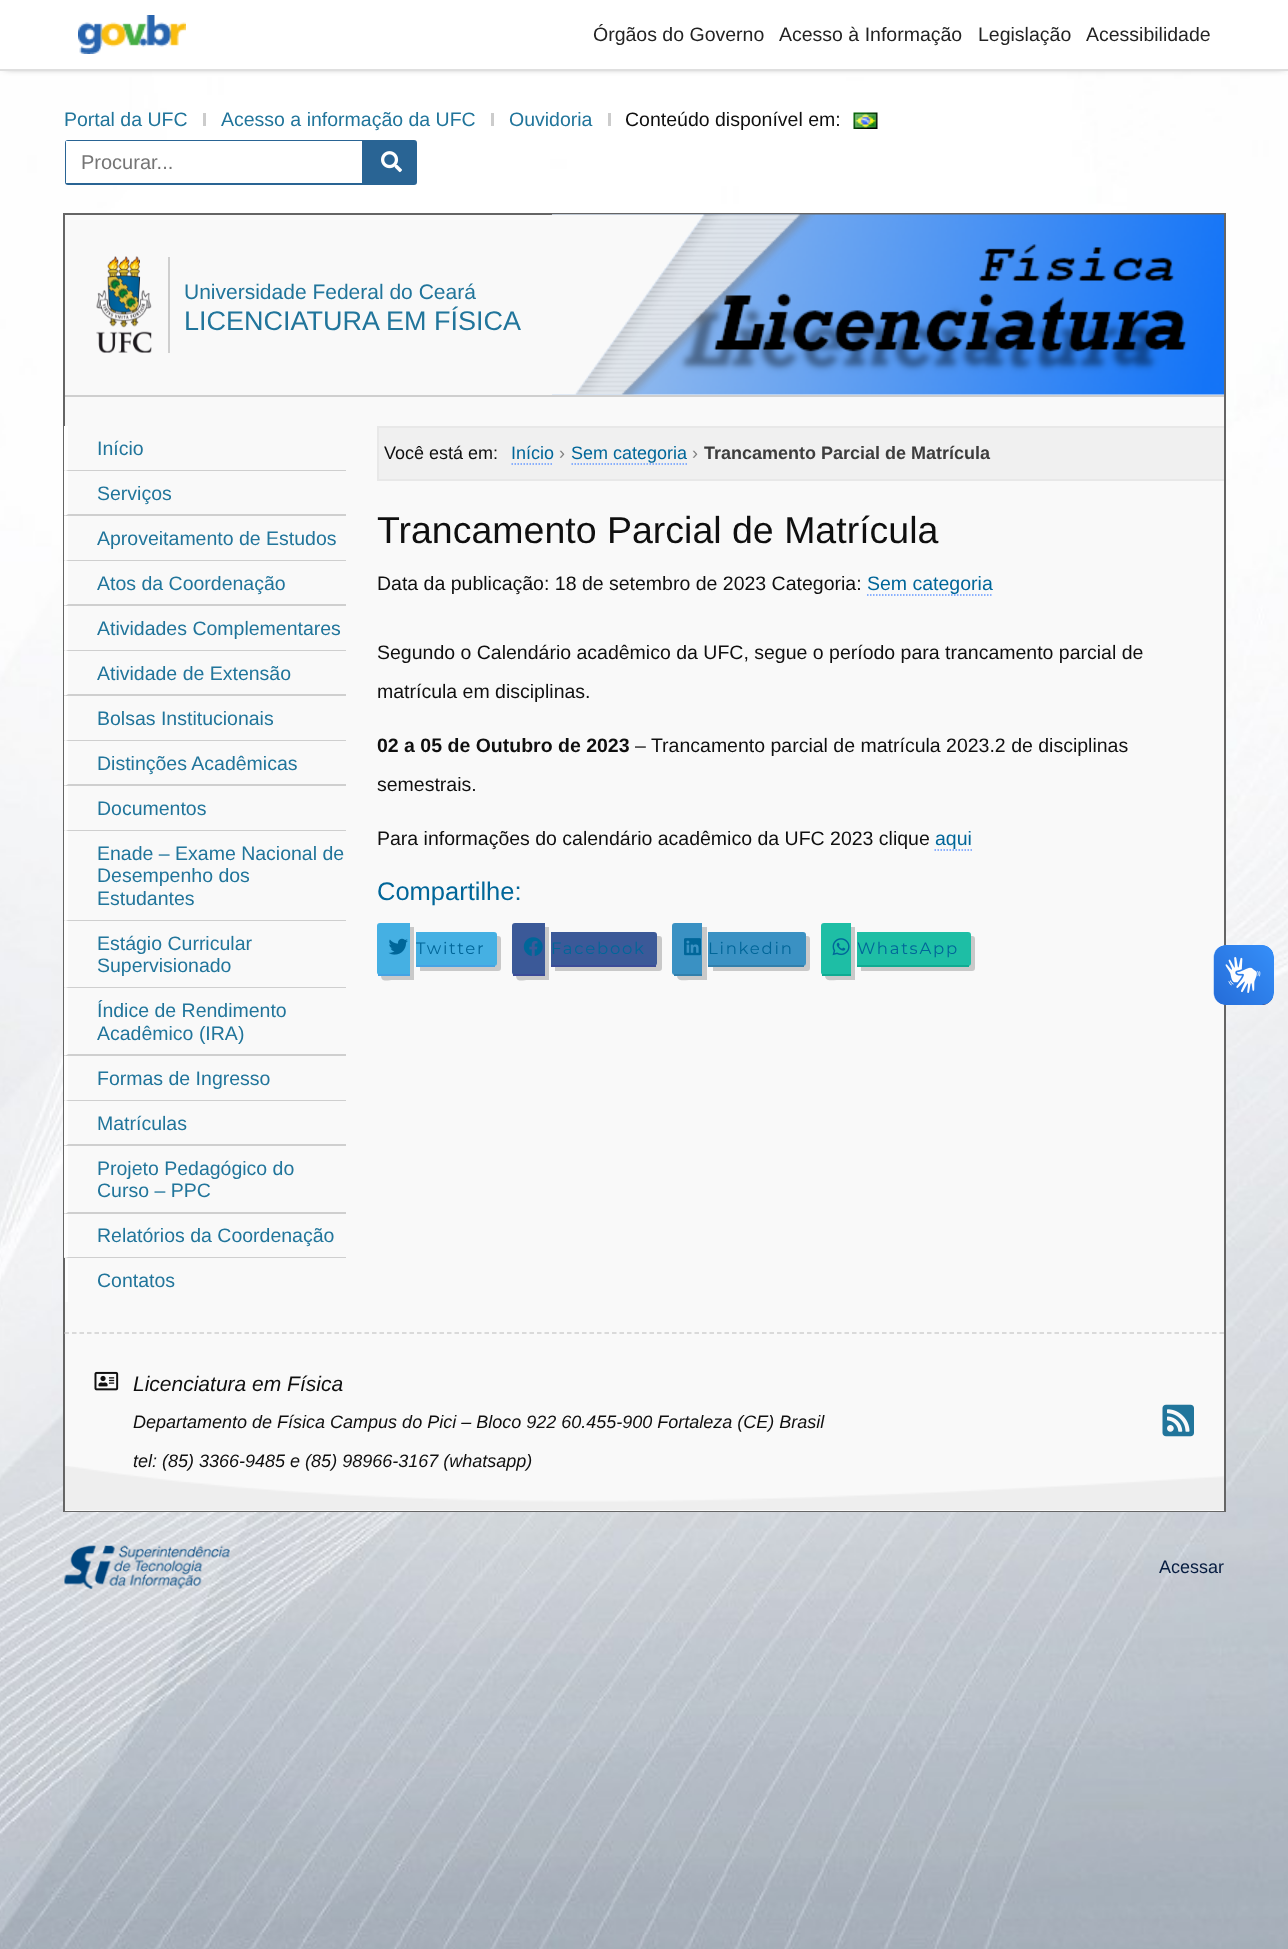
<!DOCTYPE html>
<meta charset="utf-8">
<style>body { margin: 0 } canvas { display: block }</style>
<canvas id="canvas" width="1288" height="1949"></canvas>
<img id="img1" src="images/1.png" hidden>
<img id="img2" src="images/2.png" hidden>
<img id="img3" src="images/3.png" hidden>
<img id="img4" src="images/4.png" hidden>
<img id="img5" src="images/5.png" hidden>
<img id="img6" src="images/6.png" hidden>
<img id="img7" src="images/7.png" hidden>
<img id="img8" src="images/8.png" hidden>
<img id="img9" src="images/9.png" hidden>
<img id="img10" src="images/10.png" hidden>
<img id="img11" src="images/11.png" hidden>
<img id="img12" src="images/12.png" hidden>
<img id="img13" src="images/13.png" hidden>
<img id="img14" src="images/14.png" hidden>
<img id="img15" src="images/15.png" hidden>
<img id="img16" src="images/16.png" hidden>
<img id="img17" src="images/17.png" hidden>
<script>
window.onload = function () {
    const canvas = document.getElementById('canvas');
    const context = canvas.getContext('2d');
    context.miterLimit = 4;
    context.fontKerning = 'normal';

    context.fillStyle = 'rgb(255, 255, 255)';
    context.fillRect(0, 0, 1288, 1949);
    context.drawImage(document.getElementById('img1'), 0, 71, 1288, 1878);
    context.fillStyle = 'rgb(51, 51, 51)';
    context.filter = 'blur(4px)';
    context.beginPath();
    context.rect(5, 5, 1279, 61);
    context.fill();
    context.filter = 'none';
    context.fillStyle = 'rgb(255, 255, 255)';
    context.fillRect(0, 0, 1288, 69);
    context.fillStyle = 'rgb(223, 223, 223)';
    context.fillRect(0, 69, 1288, 2);
    context.drawImage(document.getElementById('img2'), 78, 15, 108, 39);
    context.fillStyle = 'rgb(204, 204, 204)';
    context.fillRect(203, 113, 3, 13);
    context.fillRect(491, 113, 3, 13);
    context.fillRect(608, 113, 3, 13);
    context.drawImage(document.getElementById('img3'), 853, 112, 25, 17);
    context.beginPath();
    context.roundRect(66, 141, 350, 43, 2);
    context.strokeStyle = 'rgb(41, 100, 148)';
    context.lineWidth = 2;
    context.stroke();
    context.fillStyle = 'rgb(41, 100, 148)';
    context.fillRect(362, 142, 53, 41);
    context.fillStyle = 'rgb(255, 255, 255)';
    context.fillRect(66, 141, 296, 42);
    context.drawImage(document.getElementById('img4'), 381, 151, 21, 22);
    context.strokeStyle = 'rgb(101, 101, 101)';
    context.strokeRect(64, 214, 1161, 1297);
    context.fillStyle = 'rgb(249, 249, 249)';
    context.fillRect(65, 215, 1159, 1296);
    context.fillStyle = 'rgb(207, 207, 207)';
    context.fillRect(65, 395, 1159, 2);
    context.fillRect(168, 257, 2, 96);
    context.drawImage(document.getElementById('img5'), 96, 256, 56, 97);
    context.drawImage(document.getElementById('img6'), 552, 214, 672, 181);
    context.drawImage(document.getElementById('img7'), 552, 214, 263, 181);
    context.beginPath();
    context.moveTo(346, 471);
    context.lineTo(64, 471);
    context.lineTo(68, 470);
    context.lineTo(346, 470);
    context.closePath();
    context.fill();
    context.fillStyle = 'rgb(255, 255, 255)';
    context.beginPath();
    context.moveTo(64, 471);
    context.lineTo(64, 426);
    context.lineTo(68, 426);
    context.lineTo(68, 470);
    context.closePath();
    context.fill();
    context.fillStyle = 'rgb(207, 207, 207)';
    context.beginPath();
    context.moveTo(346, 516);
    context.lineTo(64, 516);
    context.lineTo(68, 514);
    context.lineTo(346, 514);
    context.closePath();
    context.fill();
    context.fillStyle = 'rgb(255, 255, 255)';
    context.beginPath();
    context.moveTo(64, 516);
    context.lineTo(64, 471);
    context.lineTo(68, 471);
    context.lineTo(68, 514);
    context.closePath();
    context.fill();
    context.fillStyle = 'rgb(207, 207, 207)';
    context.beginPath();
    context.moveTo(346, 561);
    context.lineTo(64, 561);
    context.lineTo(68, 560);
    context.lineTo(346, 560);
    context.closePath();
    context.fill();
    context.fillStyle = 'rgb(255, 255, 255)';
    context.beginPath();
    context.moveTo(64, 561);
    context.lineTo(64, 516);
    context.lineTo(68, 516);
    context.lineTo(68, 560);
    context.closePath();
    context.fill();
    context.fillStyle = 'rgb(207, 207, 207)';
    context.beginPath();
    context.moveTo(346, 606);
    context.lineTo(64, 606);
    context.lineTo(68, 604);
    context.lineTo(346, 604);
    context.closePath();
    context.fill();
    context.fillStyle = 'rgb(255, 255, 255)';
    context.beginPath();
    context.moveTo(64, 606);
    context.lineTo(64, 561);
    context.lineTo(68, 561);
    context.lineTo(68, 604);
    context.closePath();
    context.fill();
    context.fillStyle = 'rgb(207, 207, 207)';
    context.beginPath();
    context.moveTo(346, 651);
    context.lineTo(64, 651);
    context.lineTo(68, 650);
    context.lineTo(346, 650);
    context.closePath();
    context.fill();
    context.fillStyle = 'rgb(255, 255, 255)';
    context.beginPath();
    context.moveTo(64, 651);
    context.lineTo(64, 606);
    context.lineTo(68, 606);
    context.lineTo(68, 650);
    context.closePath();
    context.fill();
    context.fillStyle = 'rgb(207, 207, 207)';
    context.beginPath();
    context.moveTo(346, 696);
    context.lineTo(64, 696);
    context.lineTo(68, 694);
    context.lineTo(346, 694);
    context.closePath();
    context.fill();
    context.fillStyle = 'rgb(255, 255, 255)';
    context.beginPath();
    context.moveTo(64, 696);
    context.lineTo(64, 651);
    context.lineTo(68, 651);
    context.lineTo(68, 694);
    context.closePath();
    context.fill();
    context.fillStyle = 'rgb(207, 207, 207)';
    context.beginPath();
    context.moveTo(346, 741);
    context.lineTo(64, 741);
    context.lineTo(68, 740);
    context.lineTo(346, 740);
    context.closePath();
    context.fill();
    context.fillStyle = 'rgb(255, 255, 255)';
    context.beginPath();
    context.moveTo(64, 741);
    context.lineTo(64, 696);
    context.lineTo(68, 696);
    context.lineTo(68, 740);
    context.closePath();
    context.fill();
    context.fillStyle = 'rgb(207, 207, 207)';
    context.beginPath();
    context.moveTo(346, 786);
    context.lineTo(64, 786);
    context.lineTo(68, 784);
    context.lineTo(346, 784);
    context.closePath();
    context.fill();
    context.fillStyle = 'rgb(255, 255, 255)';
    context.beginPath();
    context.moveTo(64, 786);
    context.lineTo(64, 741);
    context.lineTo(68, 741);
    context.lineTo(68, 784);
    context.closePath();
    context.fill();
    context.fillStyle = 'rgb(207, 207, 207)';
    context.beginPath();
    context.moveTo(346, 831);
    context.lineTo(64, 831);
    context.lineTo(68, 830);
    context.lineTo(346, 830);
    context.closePath();
    context.fill();
    context.fillStyle = 'rgb(255, 255, 255)';
    context.beginPath();
    context.moveTo(64, 831);
    context.lineTo(64, 786);
    context.lineTo(68, 786);
    context.lineTo(68, 830);
    context.closePath();
    context.fill();
    context.fillStyle = 'rgb(207, 207, 207)';
    context.beginPath();
    context.moveTo(346, 921);
    context.lineTo(64, 921);
    context.lineTo(68, 920);
    context.lineTo(346, 920);
    context.closePath();
    context.fill();
    context.fillStyle = 'rgb(255, 255, 255)';
    context.beginPath();
    context.moveTo(64, 921);
    context.lineTo(64, 831);
    context.lineTo(68, 831);
    context.lineTo(68, 920);
    context.closePath();
    context.fill();
    context.fillStyle = 'rgb(207, 207, 207)';
    context.beginPath();
    context.moveTo(346, 988);
    context.lineTo(64, 988);
    context.lineTo(68, 987);
    context.lineTo(346, 987);
    context.closePath();
    context.fill();
    context.fillStyle = 'rgb(255, 255, 255)';
    context.beginPath();
    context.moveTo(64, 988);
    context.lineTo(64, 921);
    context.lineTo(68, 921);
    context.lineTo(68, 987);
    context.closePath();
    context.fill();
    context.fillStyle = 'rgb(207, 207, 207)';
    context.beginPath();
    context.moveTo(346, 1056);
    context.lineTo(64, 1056);
    context.lineTo(68, 1054);
    context.lineTo(346, 1054);
    context.closePath();
    context.fill();
    context.fillStyle = 'rgb(255, 255, 255)';
    context.beginPath();
    context.moveTo(64, 1056);
    context.lineTo(64, 988);
    context.lineTo(68, 988);
    context.lineTo(68, 1054);
    context.closePath();
    context.fill();
    context.fillStyle = 'rgb(207, 207, 207)';
    context.beginPath();
    context.moveTo(346, 1101);
    context.lineTo(64, 1101);
    context.lineTo(68, 1100);
    context.lineTo(346, 1100);
    context.closePath();
    context.fill();
    context.fillStyle = 'rgb(255, 255, 255)';
    context.beginPath();
    context.moveTo(64, 1101);
    context.lineTo(64, 1056);
    context.lineTo(68, 1056);
    context.lineTo(68, 1100);
    context.closePath();
    context.fill();
    context.fillStyle = 'rgb(207, 207, 207)';
    context.beginPath();
    context.moveTo(346, 1146);
    context.lineTo(64, 1146);
    context.lineTo(68, 1144);
    context.lineTo(346, 1144);
    context.closePath();
    context.fill();
    context.fillStyle = 'rgb(255, 255, 255)';
    context.beginPath();
    context.moveTo(64, 1146);
    context.lineTo(64, 1101);
    context.lineTo(68, 1101);
    context.lineTo(68, 1144);
    context.closePath();
    context.fill();
    context.fillStyle = 'rgb(207, 207, 207)';
    context.beginPath();
    context.moveTo(346, 1214);
    context.lineTo(64, 1214);
    context.lineTo(68, 1212);
    context.lineTo(346, 1212);
    context.closePath();
    context.fill();
    context.fillStyle = 'rgb(255, 255, 255)';
    context.beginPath();
    context.moveTo(64, 1214);
    context.lineTo(64, 1146);
    context.lineTo(68, 1146);
    context.lineTo(68, 1212);
    context.closePath();
    context.fill();
    context.fillStyle = 'rgb(207, 207, 207)';
    context.beginPath();
    context.moveTo(346, 1258);
    context.lineTo(64, 1258);
    context.lineTo(68, 1257);
    context.lineTo(346, 1257);
    context.closePath();
    context.fill();
    context.fillStyle = 'rgb(255, 255, 255)';
    context.beginPath();
    context.moveTo(64, 1258);
    context.lineTo(64, 1214);
    context.lineTo(68, 1214);
    context.lineTo(68, 1257);
    context.closePath();
    context.fill();
    context.fillRect(65, 1259, 3, 43);
    context.fillStyle = 'rgb(240, 240, 240)';
    context.fillRect(379, 428, 845, 51);
    context.fillStyle = 'rgb(232, 232, 232)';
    context.fillRect(377, 426, 847, 2);
    context.fillRect(377, 479, 847, 2);
    context.fillRect(377, 426, 2, 54);
    context.beginPath();
    context.moveTo(511.5, 464);
    context.lineTo(553.5, 464);
    context.strokeStyle = 'rgb(102, 153, 255)';
    context.lineWidth = 1.5;
    context.setLineDash([1.5, 1.5]);
    context.stroke();
    context.beginPath();
    context.moveTo(571.5, 464);
    context.lineTo(687, 464);
    context.stroke();
    context.beginPath();
    context.moveTo(867, 595);
    context.lineTo(993, 595);
    context.stroke();
    context.beginPath();
    context.moveTo(934.5, 850);
    context.lineTo(972, 850);
    context.stroke();
    context.fillStyle = 'rgb(201, 201, 201)';
    context.beginPath();
    context.moveTo(381, 975);
    context.bezierCurveTo(381, 983, 387, 980, 394, 980);
    context.lineTo(414, 980);
    context.lineTo(414, 927);
    context.lineTo(410, 927);
    context.lineTo(410, 975);
    context.closePath();
    context.fill();
    context.fillStyle = 'rgb(69, 176, 227)';
    context.beginPath();
    context.roundRect(377, 923, 33, 52, [3, 0, 0, 3]);
    context.fill();
    context.fillStyle = 'rgb(69, 163, 227)';
    context.fillRect(378, 974, 32, 2);
    context.fillStyle = 'rgb(201, 201, 201)';
    context.beginPath();
    context.moveTo(420, 966);
    context.lineTo(420, 971);
    context.lineTo(498, 971);
    context.bezierCurveTo(500, 971, 501, 970, 501, 968);
    context.lineTo(501, 939);
    context.bezierCurveTo(501, 937, 500, 936, 498, 936);
    context.lineTo(496, 936);
    context.lineTo(496, 963);
    context.bezierCurveTo(496, 965, 495, 966, 494, 966);
    context.closePath();
    context.fill();
    context.fillStyle = 'rgb(69, 176, 227)';
    context.beginPath();
    context.roundRect(416, 932, 81, 34, [0, 3, 3, 0]);
    context.fill();
    context.fillStyle = 'rgb(69, 163, 227)';
    context.fillRect(416, 965, 79, 2);
    context.drawImage(document.getElementById('img8'), 388, 938, 20, 17);
    context.fillStyle = 'rgb(201, 201, 201)';
    context.beginPath();
    context.moveTo(516, 975);
    context.bezierCurveTo(516, 983, 522, 980, 529, 980);
    context.lineTo(549, 980);
    context.lineTo(549, 927);
    context.lineTo(544, 927);
    context.lineTo(544, 975);
    context.closePath();
    context.fill();
    context.fillStyle = 'rgb(59, 89, 152)';
    context.beginPath();
    context.roundRect(512, 923, 33, 52, [3, 0, 0, 3]);
    context.fill();
    context.fillStyle = 'rgb(59, 76, 152)';
    context.fillRect(513, 974, 32, 2);
    context.fillStyle = 'rgb(201, 201, 201)';
    context.beginPath();
    context.moveTo(555, 966);
    context.lineTo(555, 971);
    context.lineTo(659, 971);
    context.bezierCurveTo(661, 971, 662, 970, 662, 968);
    context.lineTo(662, 939);
    context.bezierCurveTo(662, 937, 661, 936, 659, 936);
    context.lineTo(657, 936);
    context.lineTo(657, 963);
    context.bezierCurveTo(657, 965, 656, 966, 654, 966);
    context.closePath();
    context.fill();
    context.fillStyle = 'rgb(59, 89, 152)';
    context.beginPath();
    context.roundRect(551, 932, 106, 34, [0, 3, 3, 0]);
    context.fill();
    context.fillStyle = 'rgb(59, 76, 152)';
    context.fillRect(551, 965, 105, 2);
    context.drawImage(document.getElementById('img9'), 523, 937, 20, 19);
    context.fillStyle = 'rgb(201, 201, 201)';
    context.beginPath();
    context.moveTo(677, 975);
    context.bezierCurveTo(677, 982, 683, 980, 689, 980);
    context.lineTo(707, 980);
    context.lineTo(707, 927);
    context.lineTo(702, 927);
    context.lineTo(702, 975);
    context.closePath();
    context.fill();
    context.fillStyle = 'rgb(58, 145, 195)';
    context.beginPath();
    context.roundRect(672, 923, 30, 52, [3, 0, 0, 3]);
    context.fill();
    context.fillStyle = 'rgb(50, 127, 172)';
    context.fillRect(674, 974, 28, 2);
    context.fillStyle = 'rgb(201, 201, 201)';
    context.beginPath();
    context.moveTo(713, 966);
    context.lineTo(713, 971);
    context.lineTo(807, 971);
    context.bezierCurveTo(809, 971, 810, 970, 810, 968);
    context.lineTo(810, 939);
    context.bezierCurveTo(810, 937, 809, 936, 807, 936);
    context.lineTo(806, 936);
    context.lineTo(806, 963);
    context.bezierCurveTo(806, 965, 804, 966, 802, 966);
    context.closePath();
    context.fill();
    context.fillStyle = 'rgb(58, 145, 195)';
    context.beginPath();
    context.roundRect(708, 932, 98, 34, [0, 3, 3, 0]);
    context.fill();
    context.fillStyle = 'rgb(50, 127, 172)';
    context.fillRect(708, 965, 96, 2);
    context.drawImage(document.getElementById('img10'), 684, 938, 17, 18);
    context.fillStyle = 'rgb(201, 201, 201)';
    context.beginPath();
    context.moveTo(825, 975);
    context.bezierCurveTo(825, 982, 831, 980, 837, 980);
    context.lineTo(855, 980);
    context.lineTo(855, 927);
    context.lineTo(850, 927);
    context.lineTo(850, 975);
    context.closePath();
    context.fill();
    context.fillStyle = 'rgb(30, 190, 165)';
    context.beginPath();
    context.roundRect(821, 923, 30, 52, [3, 0, 0, 3]);
    context.fill();
    context.fillStyle = 'rgb(15, 171, 146)';
    context.fillRect(822, 974, 29, 2);
    context.fillStyle = 'rgb(201, 201, 201)';
    context.beginPath();
    context.moveTo(861, 966);
    context.lineTo(861, 971);
    context.lineTo(972, 971);
    context.bezierCurveTo(974, 971, 975, 970, 975, 968);
    context.lineTo(975, 939);
    context.bezierCurveTo(975, 937, 974, 936, 972, 936);
    context.lineTo(970, 936);
    context.lineTo(970, 963);
    context.bezierCurveTo(970, 965, 969, 966, 968, 966);
    context.closePath();
    context.fill();
    context.fillStyle = 'rgb(30, 190, 165)';
    context.beginPath();
    context.roundRect(857, 932, 114, 34, [0, 3, 3, 0]);
    context.fill();
    context.fillStyle = 'rgb(15, 171, 146)';
    context.fillRect(857, 965, 112, 2);
    context.drawImage(document.getElementById('img11'), 832, 938, 18, 18);
    context.drawImage(document.getElementById('img12'), 65, 1466, 1159, 44);
    context.beginPath();
    context.moveTo(64.5, 1333);
    context.lineTo(1224, 1333);
    context.strokeStyle = 'rgb(207, 207, 207)';
    context.setLineDash([4.5, 3]);
    context.stroke();
    context.drawImage(document.getElementById('img13'), 94, 1371, 25, 20);
    context.drawImage(document.getElementById('img14'), 1162, 1404, 32, 33);
    context.drawImage(document.getElementById('img15'), 1213, 945, 61, 60);
    context.drawImage(document.getElementById('img16'), 1214, 945, 60, 60);
    context.drawImage(document.getElementById('img17'), 64, 1545, 166, 44);
    context.font = '19.5px Liberation Sans';
    context.fillStyle = 'rgb(35, 35, 35)';
    context.fillText('Órgãos do Governo', 593, 41);
    context.fillText('Acesso à Informação', 779, 41);
    context.fillText('Legislação', 978, 41);
    context.fillText('Acessibilidade', 1086, 41);
    context.fillStyle = 'rgb(33, 117, 155)';
    context.fillText('Portal da UFC', 64, 126);
    context.fillText('Acesso a informação da UFC', 221, 126);
    context.fillText('Ouvidoria', 509, 126);
    context.fillStyle = 'rgb(15, 15, 15)';
    context.fillText('Conteúdo disponível em:', 625, 126);
    context.font = '20px Liberation Sans';
    context.fillStyle = 'rgb(117, 117, 117)';
    context.fillText('Procurar...', 81, 169);
    context.font = '21px Liberation Sans';
    context.fillStyle = 'rgb(33, 117, 155)';
    context.fillText('Universidade Federal do Ceará', 184, 299);
    context.font = '27px Liberation Sans';
    context.fillText('LICENCIATURA EM FÍSICA', 184, 330);
    context.font = '19.5px Liberation Sans';
    context.fillText('Início', 97, 455);
    context.fillText('Serviços', 97, 500);
    context.fillText('Aproveitamento de Estudos', 97, 545);
    context.fillText('Atos da Coordenação', 97, 590);
    context.fillText('Atividades Complementares', 97, 635);
    context.fillText('Atividade de Extensão', 97, 680);
    context.fillText('Bolsas Institucionais', 97, 725);
    context.fillText('Distinções Acadêmicas', 97, 770);
    context.fillText('Documentos', 97, 815);
    context.fillText('Enade – Exame Nacional de', 97, 860);
    context.fillText('Desempenho dos', 97, 882);
    context.fillText('Estudantes', 97, 905);
    context.fillText('Estágio Curricular', 97, 950);
    context.fillText('Supervisionado', 97, 972);
    context.fillText('Índice de Rendimento', 97, 1017);
    context.fillText('Acadêmico (IRA)', 97, 1040);
    context.fillText('Formas de Ingresso', 97, 1085);
    context.fillText('Matrículas', 97, 1130);
    context.fillText('Projeto Pedagógico do', 97, 1175);
    context.fillText('Curso – PPC', 97, 1197);
    context.fillText('Relatórios da Coordenação', 97, 1242);
    context.fillText('Contatos', 97, 1287);
    context.font = '18px Liberation Sans';
    context.fillStyle = 'rgb(15, 15, 15)';
    context.fillText('Você está em:', 384, 459);
    context.fillStyle = 'rgb(0, 102, 153)';
    context.fillText('Início', 511, 459);
    context.fillStyle = 'rgb(128, 128, 128)';
    context.fillText('›', 559, 459);
    context.fillStyle = 'rgb(0, 102, 153)';
    context.fillText('Sem categoria', 571, 459);
    context.fillStyle = 'rgb(128, 128, 128)';
    context.fillText('›', 692, 459);
    context.font = 'bold 18px Liberation Sans';
    context.fillStyle = 'rgb(61, 61, 61)';
    context.fillText('Trancamento Parcial de Matrícula', 704, 459);
    context.font = '37.5px Liberation Sans';
    context.fillStyle = 'rgb(15, 15, 15)';
    context.fillText('Trancamento Parcial de Matrícula', 377, 543);
    context.font = '19.5px Liberation Sans';
    context.fillText('Data da publicação: 18 de setembro de 2023 Categoria:', 377, 590);
    context.fillStyle = 'rgb(0, 102, 153)';
    context.fillText('Sem categoria', 867, 590);
    context.fillStyle = 'rgb(15, 15, 15)';
    context.fillText('Segundo o Calendário acadêmico da UFC, segue o período para trancamento parcial de', 377, 659);
    context.fillText('matrícula em disciplinas.', 377, 698);
    context.font = 'bold 19.5px Liberation Sans';
    context.fillText('02 a 05 de Outubro de 2023', 377, 752);
    context.font = '19.5px Liberation Sans';
    context.fillText('– Trancamento parcial de matrícula 2023.2 de disciplinas', 635, 752);
    context.fillText('semestrais.', 377, 791);
    context.fillText('Para informações do calendário acadêmico da UFC 2023 clique', 377, 845);
    context.fillStyle = 'rgb(0, 102, 153)';
    context.fillText('aqui', 935, 845);
    context.font = '25.5px Liberation Sans';
    context.fillText('Compartilhe:', 377, 900);
    context.letterSpacing = '1.75px';
    context.font = '16.5px Montserrat';
    context.fillText('Twitter', 416, 954);
    context.fillText('Facebook', 551, 954);
    context.fillText('Linkedin', 708, 954);
    context.fillText('WhatsApp', 857, 954);
    context.letterSpacing = '0px';
    context.font = 'italic 21px Liberation Sans';
    context.fillStyle = 'rgb(15, 15, 15)';
    context.fillText('Licenciatura em Física', 133, 1391);
    context.font = 'italic 18px Liberation Sans';
    context.fillText('Departamento de Física Campus do Pici – Bloco 922 60.455-900 Fortaleza (CE) Brasil', 133, 1428);
    context.fillText('tel: (85) 3366-9485 e (85) 98966-3167 (whatsapp)', 133, 1467);
    context.font = '18px Liberation Sans';
    context.fillStyle = 'rgb(7, 29, 65)';
    context.fillText('Acessar', 1159, 1573);
};
</script>
